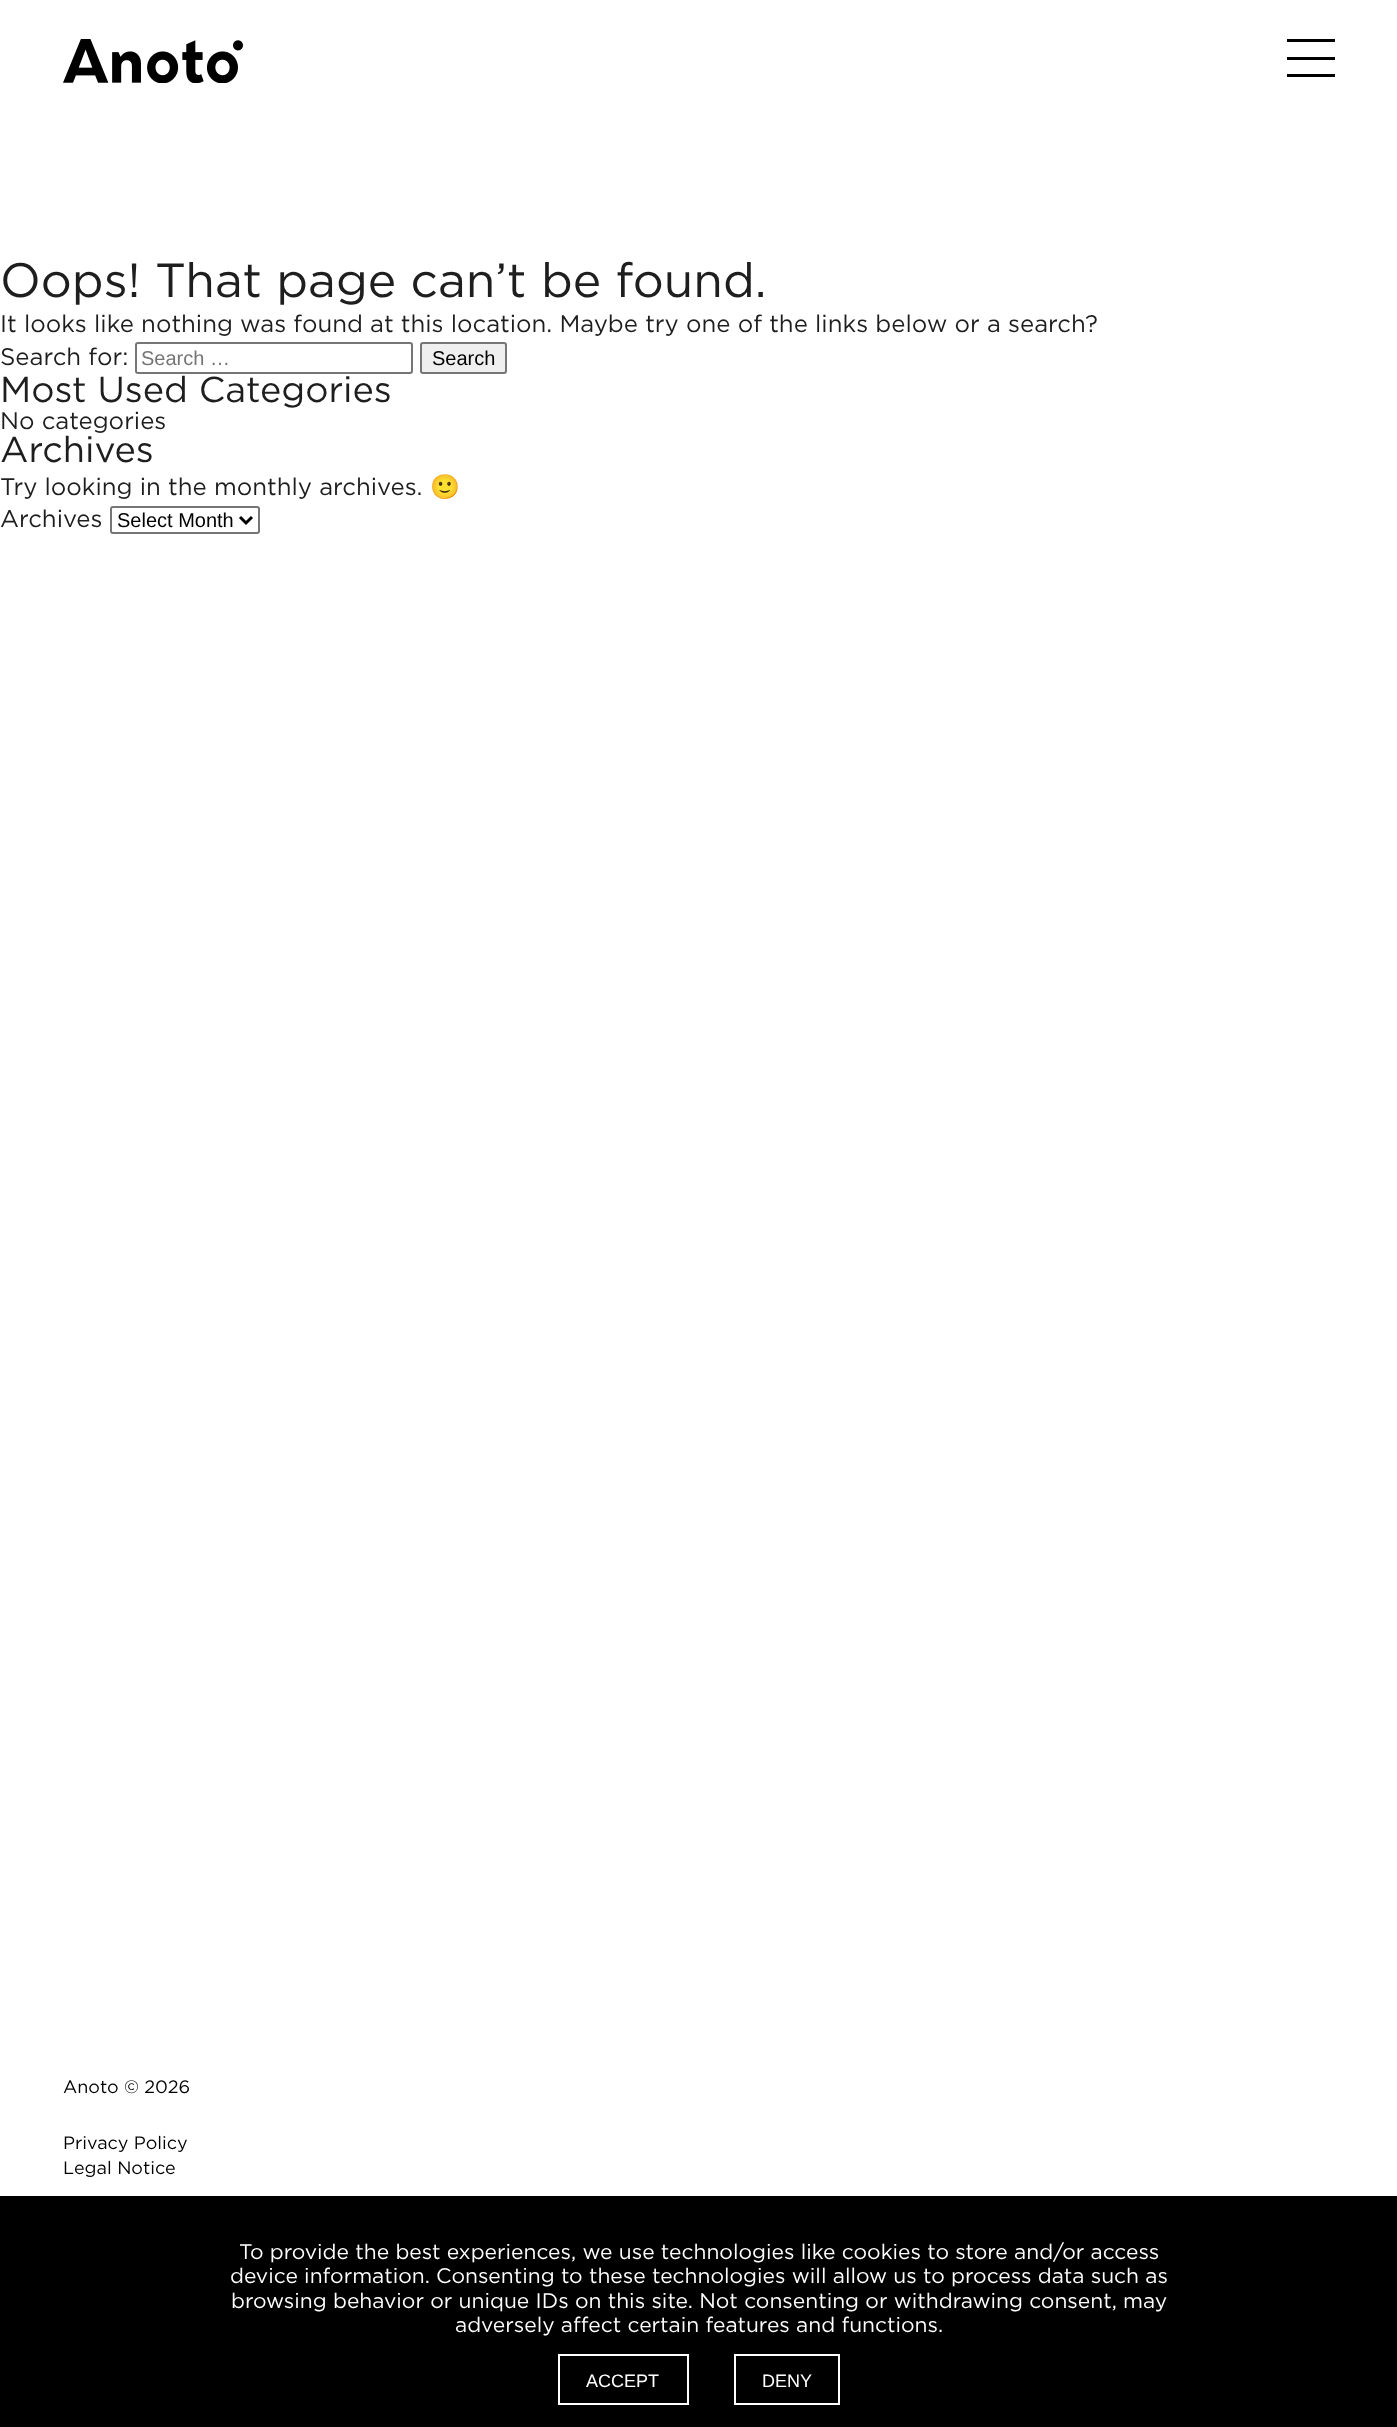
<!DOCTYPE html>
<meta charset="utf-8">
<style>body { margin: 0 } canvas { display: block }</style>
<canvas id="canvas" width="1397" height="2427"></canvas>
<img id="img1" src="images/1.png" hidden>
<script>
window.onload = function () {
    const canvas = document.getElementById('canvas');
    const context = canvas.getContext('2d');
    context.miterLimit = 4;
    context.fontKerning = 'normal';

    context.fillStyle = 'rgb(255, 255, 255)';
    context.fillRect(0, 0, 1397, 2427);
    context.drawImage(document.getElementById('img1'), 63, 39, 180, 44);
    context.fillStyle = 'rgb(0, 0, 0)';
    context.fillRect(1287, 39, 48, 3);
    context.fillRect(1287, 57, 48, 3);
    context.fillRect(1287, 74, 48, 3);
    context.beginPath();
    context.roundRect(136, 343, 276, 30, 2);
    context.strokeStyle = 'rgb(118, 118, 118)';
    context.lineWidth = 2;
    context.stroke();
    context.fillStyle = 'rgb(239, 239, 239)';
    context.beginPath();
    context.roundRect(421, 343, 85, 30, 2);
    context.fill();
    context.stroke();
    context.beginPath();
    context.roundRect(111, 507, 148, 26, 2);
    context.stroke();
    context.beginPath();
    context.moveTo(240, 517);
    context.lineTo(246, 523);
    context.lineTo(252, 517);
    context.strokeStyle = 'rgb(0, 0, 0)';
    context.lineWidth = 3;
    context.stroke();
    context.fillStyle = 'rgb(0, 0, 0)';
    context.fillRect(0, 2196, 1397, 231);
    context.strokeStyle = 'rgb(255, 255, 255)';
    context.lineWidth = 2;
    context.strokeRect(559, 2355, 129, 49);
    context.strokeRect(735, 2355, 104, 49);
    context.font = '48px Gotham';
    context.fillStyle = 'rgb(30, 30, 30)';
    context.fillText('Oops! That page can’t be found.', 0, 297);
    context.font = '24px Gotham';
    context.fillText('It looks like nothing was found at this location. Maybe try one of the links below or a search?', 0, 332);
    context.fillText('Search for:', 0, 365);
    context.font = '20px Liberation Sans';
    context.fillStyle = 'rgb(117, 117, 117)';
    context.fillText('Search …', 141, 365);
    context.fillStyle = 'rgb(0, 0, 0)';
    context.fillText('Search', 432, 365);
    context.font = '36px Gotham';
    context.fillStyle = 'rgb(30, 30, 30)';
    context.fillText('Most Used Categories', 0, 402);
    context.font = '24px Gotham';
    context.fillText('No categories', 0, 429);
    context.font = '36px Gotham';
    context.fillText('Archives', 0, 462);
    context.font = '24px Gotham';
    context.fillText('Try looking in the monthly archives.', 0, 495);
    context.font = '24px Noto Color Emoji';
    context.fillText('🙂', 430, 495);
    context.font = '24px Gotham';
    context.fillText('Archives', 0, 527);
    context.font = '20px Liberation Sans';
    context.fillStyle = 'rgb(0, 0, 0)';
    context.fillText('Select Month', 117, 527);
    context.font = '18px Gotham';
    context.fillText('Anoto © 2026', 63, 2093);
    context.fillText('Privacy Policy', 63, 2149);
    context.fillText('Legal Notice', 63, 2174);
    context.font = '21px Gotham';
    context.fillStyle = 'rgb(255, 255, 255)';
    context.fillText('To provide the best experiences, we use technologies like cookies to store and/or access', 239, 2259);
    context.fillText('device information. Consenting to these technologies will allow us to process data such as', 230, 2283);
    context.fillText('browsing behavior or unique IDs on this site. Not consenting or withdrawing consent, may', 231, 2308);
    context.fillText('adversely affect certain features and functions.', 455, 2332);
    context.font = '18px Liberation Sans';
    context.fillText('ACCEPT', 586, 2387);
    context.fillText('DENY', 762, 2387);
};
</script>
